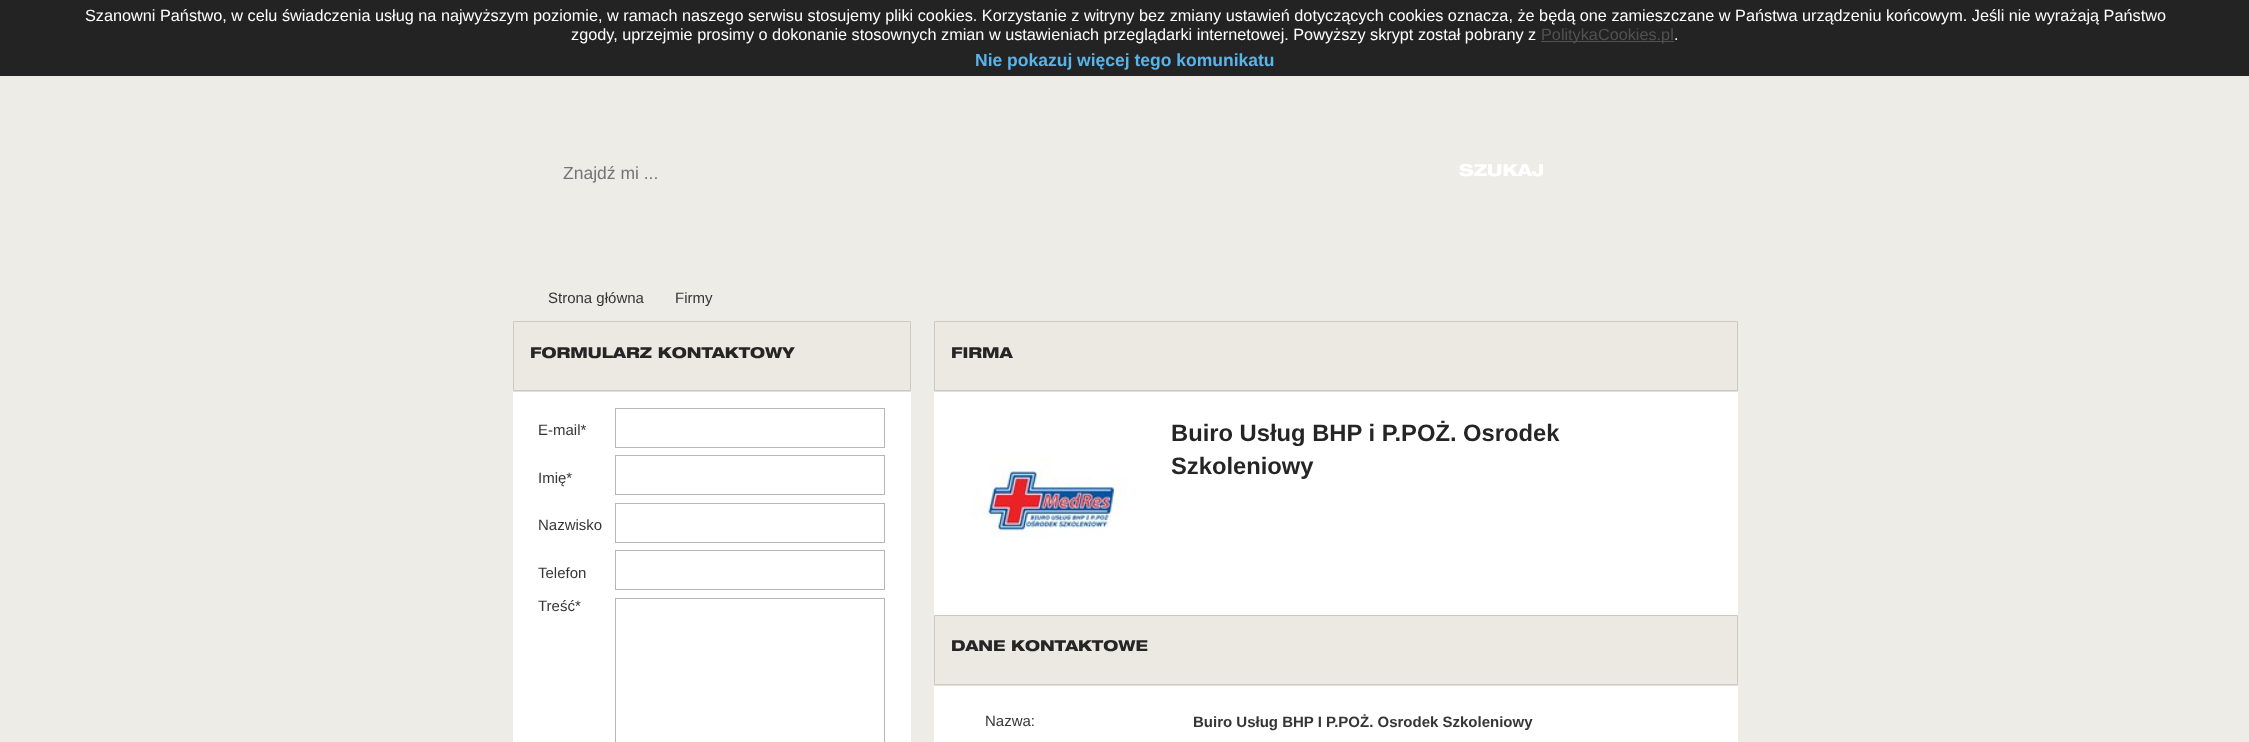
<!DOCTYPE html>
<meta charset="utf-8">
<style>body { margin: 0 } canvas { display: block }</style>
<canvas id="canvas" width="2249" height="742"></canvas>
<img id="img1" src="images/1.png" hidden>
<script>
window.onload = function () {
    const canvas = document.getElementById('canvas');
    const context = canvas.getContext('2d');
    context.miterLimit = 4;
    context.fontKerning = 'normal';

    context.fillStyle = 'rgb(238, 236, 231)';
    context.fillRect(0, 0, 2249, 742);
    context.fillStyle = 'rgba(0, 0, 0, 0.85)';
    context.fillRect(0, 0, 2249, 76);
    context.fillStyle = 'rgb(82, 81, 81)';
    context.fillRect(1541, 41, 133, 1);
    context.fillStyle = 'rgb(236, 233, 227)';
    context.beginPath();
    context.rect(513.5, 321.5, 397, 69);
    context.fill();
    context.strokeStyle = 'rgb(207, 200, 188)';
    context.stroke();
    context.fillStyle = 'rgb(255, 255, 255)';
    context.fillRect(513, 392, 398, 350);
    context.fillStyle = 'rgb(224, 224, 224)';
    context.fillRect(513, 391, 398, 1);
    context.strokeStyle = 'rgb(183, 183, 183)';
    context.strokeRect(615.5, 408.5, 269, 39);
    context.strokeRect(615.5, 455.5, 269, 39);
    context.strokeRect(615.5, 503.5, 269, 39);
    context.strokeRect(615.5, 550.5, 269, 39);
    context.strokeRect(615.5, 598.5, 269, 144);
    context.fillStyle = 'rgb(236, 233, 227)';
    context.beginPath();
    context.rect(934.5, 321.5, 803, 69);
    context.fill();
    context.strokeStyle = 'rgb(207, 200, 188)';
    context.stroke();
    context.fillStyle = 'rgb(255, 255, 255)';
    context.fillRect(934, 392, 804, 223);
    context.fillStyle = 'rgb(224, 224, 224)';
    context.fillRect(934, 391, 804, 1);
    context.drawImage(document.getElementById('img1'), 971, 457, 158, 81);
    context.fillStyle = 'rgb(236, 233, 227)';
    context.beginPath();
    context.rect(934.5, 615.5, 803, 69);
    context.fill();
    context.stroke();
    context.fillStyle = 'rgb(255, 255, 255)';
    context.fillRect(934, 686, 804, 56);
    context.fillStyle = 'rgb(224, 224, 224)';
    context.fillRect(934, 685, 804, 1);
    context.font = '16.25px Liberation Sans';
    context.fillStyle = 'rgb(255, 255, 255)';
    context.fillText('Szanowni Państwo, w celu świadczenia usług na najwyższym poziomie, w ramach naszego serwisu stosujemy pliki cookies. Korzystanie z witryny bez zmiany ustawień dotyczących cookies oznacza, że będą one zamieszczane w Państwa urządzeniu końcowym. Jeśli nie wyrażają Państwo', 85, 21);
    context.fillText('zgody, uprzejmie prosimy o dokonanie stosownych zmian w ustawieniach przeglądarki internetowej. Powyższy skrypt został pobrany z', 571, 40);
    context.fillStyle = 'rgb(82, 81, 81)';
    context.fillText('PolitykaCookies.pl', 1541, 40);
    context.fillStyle = 'rgb(255, 255, 255)';
    context.fillText('.', 1674, 40);
    context.font = 'bold 17.5px Liberation Sans';
    context.fillStyle = 'rgb(88, 180, 233)';
    context.fillText('Nie pokazuj więcej tego komunikatu', 975, 66);
    context.font = '17.5px Liberation Sans';
    context.fillStyle = 'rgb(117, 117, 117)';
    context.fillText('Znajdź mi ...', 563, 179);
    context.font = 'bold 16.5px Helvetica Neue';
    context.fillStyle = 'rgb(255, 255, 255)';
    context.fillText('SZUKAJ', 1459, 176);
    context.font = '15px Liberation Sans';
    context.fillStyle = 'rgb(54, 54, 54)';
    context.fillText('Strona główna', 548, 303);
    context.fillText('Firmy', 675, 303);
    context.font = 'bold 15px Helvetica Neue';
    context.fillStyle = 'rgb(37, 37, 37)';
    context.fillText('FORMULARZ KONTAKTOWY', 530, 358);
    context.font = '15px Liberation Sans';
    context.fillStyle = 'rgb(54, 54, 54)';
    context.fillText('E-mail*', 538, 435);
    context.fillText('Imię*', 538, 483);
    context.fillText('Nazwisko', 538, 530);
    context.fillText('Telefon', 538, 578);
    context.fillText('Treść*', 538, 611);
    context.font = 'bold 15px Helvetica Neue';
    context.fillStyle = 'rgb(37, 37, 37)';
    context.fillText('FIRMA', 951, 358);
    context.font = 'bold 23.75px Liberation Sans';
    context.fillText('Buiro Usług BHP i P.POŻ. Osrodek', 1171, 441);
    context.fillText('Szkoleniowy', 1171, 474);
    context.font = 'bold 15px Helvetica Neue';
    context.fillText('DANE KONTAKTOWE', 951, 651);
    context.font = '15px Liberation Sans';
    context.fillStyle = 'rgb(54, 54, 54)';
    context.fillText('Nazwa:', 985, 726);
    context.font = 'bold 15px Liberation Sans';
    context.fillText('Buiro Usług BHP I P.POŻ. Osrodek Szkoleniowy', 1193, 727);
};
</script>
